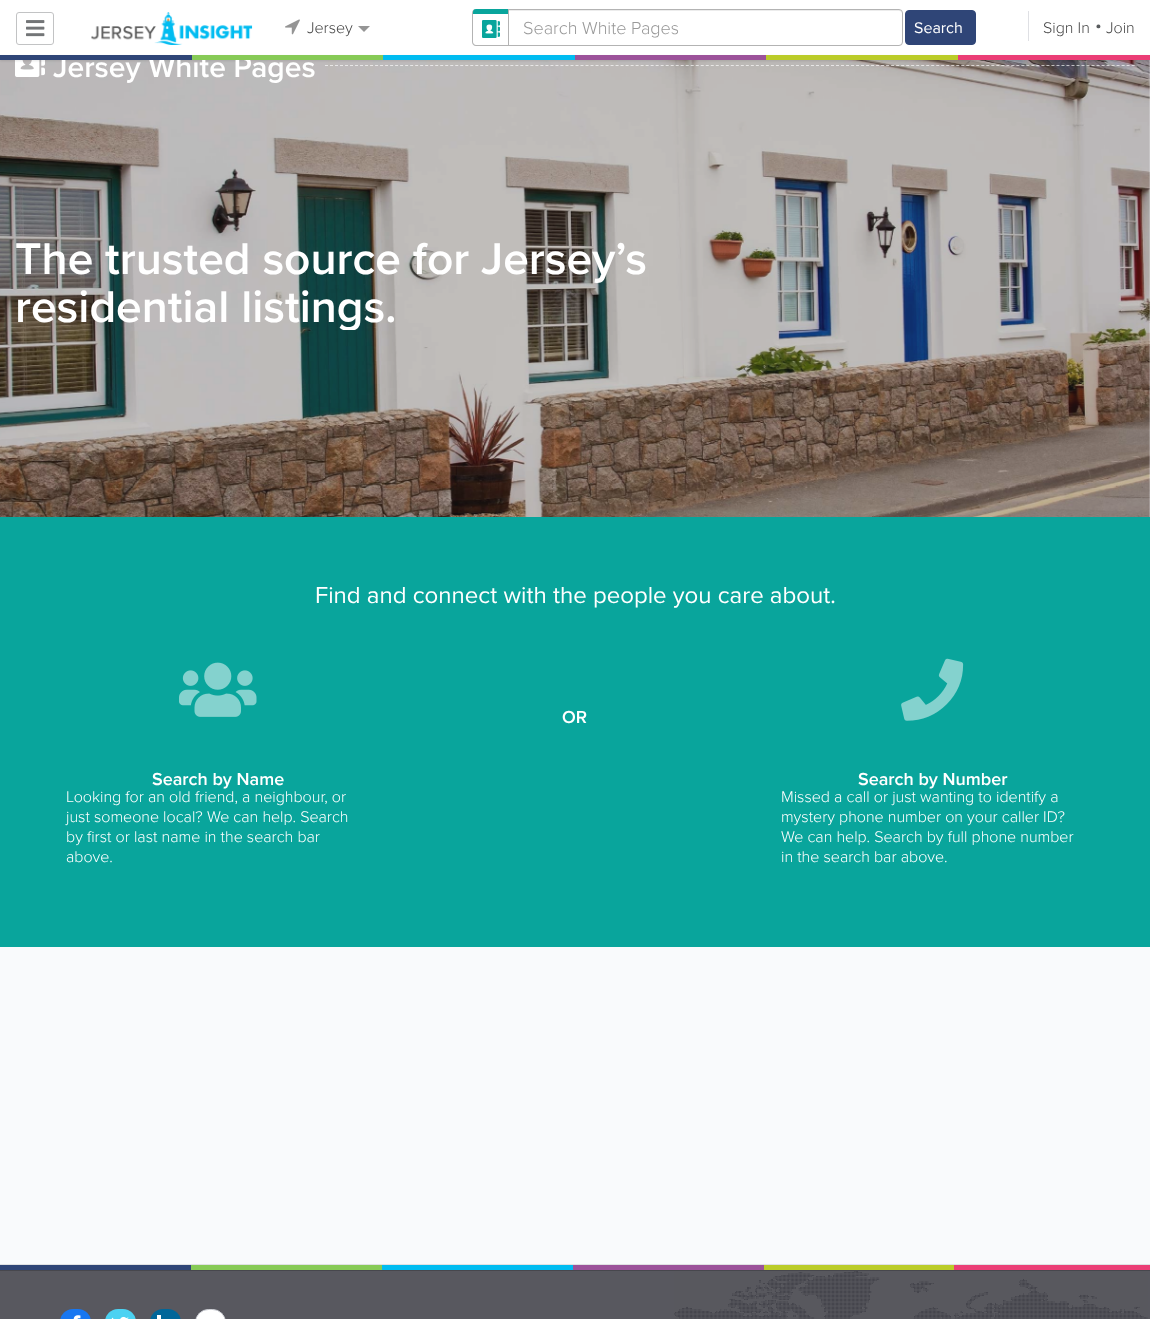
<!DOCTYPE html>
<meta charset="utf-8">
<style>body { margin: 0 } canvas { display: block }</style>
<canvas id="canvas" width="1150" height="1319"></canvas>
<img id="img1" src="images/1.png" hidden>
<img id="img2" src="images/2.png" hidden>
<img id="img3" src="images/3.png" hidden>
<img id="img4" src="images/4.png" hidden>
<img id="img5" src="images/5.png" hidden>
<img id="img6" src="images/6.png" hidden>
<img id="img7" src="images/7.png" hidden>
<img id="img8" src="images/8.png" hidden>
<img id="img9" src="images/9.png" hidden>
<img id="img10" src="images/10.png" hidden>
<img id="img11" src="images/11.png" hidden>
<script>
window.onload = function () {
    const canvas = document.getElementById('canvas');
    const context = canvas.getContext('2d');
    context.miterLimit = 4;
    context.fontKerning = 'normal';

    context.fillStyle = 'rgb(249, 250, 252)';
    context.fillRect(0, 0, 1150, 1319);
    context.fillStyle = 'rgb(255, 255, 255)';
    context.fillRect(0, 0, 1150, 55);
    context.beginPath();
    context.roundRect(16.5, 12.5, 37, 32, 2.5);
    context.strokeStyle = 'rgb(194, 195, 196)';
    context.stroke();
    context.drawImage(document.getElementById('img1'), 26, 20, 19, 17);
    context.drawImage(document.getElementById('img2'), 91, 12, 162, 33);
    context.drawImage(document.getElementById('img3'), 285, 19, 15, 16);
    context.fillStyle = 'rgb(149, 149, 149)';
    context.beginPath();
    context.moveTo(358, 26);
    context.lineTo(370, 26);
    context.lineTo(364, 32);
    context.closePath();
    context.fill();
    context.fillStyle = 'rgb(236, 236, 236)';
    context.beginPath();
    context.moveTo(476, 11);
    context.lineTo(899, 11);
    context.bezierCurveTo(901, 11, 902, 12, 902, 14);
    context.bezierCurveTo(902, 12, 901, 10, 899, 10);
    context.lineTo(476, 10);
    context.bezierCurveTo(474, 10, 473, 12, 473, 14);
    context.bezierCurveTo(473, 12, 474, 11, 476, 11);
    context.closePath();
    context.fill();
    context.beginPath();
    context.roundRect(472.5, 9.5, 430, 36, 3.5);
    context.strokeStyle = 'rgb(179, 179, 179)';
    context.stroke();
    context.fillStyle = 'rgb(255, 255, 255)';
    context.beginPath();
    context.roundRect(472, 9, 37, 37, [4, 0, 0, 4]);
    context.fill();
    context.fillStyle = 'rgb(179, 179, 179)';
    context.beginPath();
    context.moveTo(476, 9);
    context.lineTo(509, 9);
    context.lineTo(509, 46);
    context.lineTo(476, 46);
    context.bezierCurveTo(474, 46, 472, 44, 472, 42);
    context.lineTo(472, 13);
    context.bezierCurveTo(472, 11, 474, 9, 476, 9);
    context.closePath();
    context.moveTo(476, 9);
    context.lineTo(508, 9);
    context.lineTo(508, 45);
    context.lineTo(476, 45);
    context.bezierCurveTo(474.5, 45, 473, 43.5, 473, 42);
    context.lineTo(473, 13);
    context.bezierCurveTo(473, 11, 474.5, 9, 476, 9);
    context.closePath();
    context.fill('evenodd');
    context.fillStyle = 'rgb(9, 165, 156)';
    context.beginPath();
    context.roundRect(473, 9, 35, 5, [3, 0, 0, 0]);
    context.fill();
    context.drawImage(document.getElementById('img4'), 482, 20, 18, 18);
    context.fillStyle = 'rgb(47, 69, 119)';
    context.beginPath();
    context.roundRect(905.5, 10.5, 70, 34, 3.5);
    context.fill();
    context.strokeStyle = 'rgb(47, 69, 119)';
    context.stroke();
    context.fillStyle = 'rgb(223, 224, 228)';
    context.fillRect(1028, 11, 1, 30);
    context.drawImage(document.getElementById('img5'), 0, 60, 1150, 457);
    context.drawImage(document.getElementById('img6'), 15, 60, 30, 17);
    context.fillStyle = 'rgba(0, 0, 0, 0.1)';
    context.filter = 'blur(1px)';
    context.beginPath();
    context.rect(0, 56, 1150, 5);
    context.fill();
    context.filter = 'none';
    context.fillStyle = 'rgb(235, 62, 118)';
    context.fillRect(958, 55, 192, 5);
    context.fillStyle = 'rgb(0, 188, 241)';
    context.fillRect(383, 55, 192, 5);
    context.fillStyle = 'rgb(156, 82, 154)';
    context.fillRect(575, 55, 191, 5);
    context.fillStyle = 'rgb(187, 204, 41)';
    context.fillRect(766, 55, 192, 5);
    context.save();
    context.beginPath();
    context.rect(15, 46, 1120, 38);
    context.clip();
    context.beginPath();
    context.moveTo(325, 65.5);
    context.lineTo(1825, 65.5);
    context.strokeStyle = 'rgba(255, 255, 255, 0.65)';
    context.setLineDash([3, 2.01]);
    context.stroke();
    context.restore();
    context.fillStyle = 'rgb(9, 165, 156)';
    context.fillRect(0, 517, 1150, 430);
    context.drawImage(document.getElementById('img7'), 179, 662, 78, 55);
    context.drawImage(document.getElementById('img8'), 901, 658, 63, 63);
    context.fillStyle = 'rgb(224, 225, 227)';
    context.fillRect(0, 1264, 1150, 1);
    context.fillStyle = 'rgb(235, 62, 118)';
    context.fillRect(954, 1265, 196, 5);
    context.fillStyle = 'rgb(47, 69, 119)';
    context.fillRect(0, 1265, 191, 5);
    context.fillStyle = 'rgb(135, 202, 86)';
    context.fillRect(191, 1265, 191, 5);
    context.fillStyle = 'rgb(0, 188, 241)';
    context.fillRect(382, 1265, 191, 5);
    context.fillStyle = 'rgb(156, 82, 154)';
    context.fillRect(573, 1265, 191, 5);
    context.fillStyle = 'rgb(187, 204, 41)';
    context.fillRect(764, 1265, 190, 5);
    context.fillStyle = 'rgb(88, 88, 95)';
    context.fillRect(0, 1271, 1150, 48);
    context.drawImage(document.getElementById('img9'), 674, 1271, 474, 48);
    context.fillStyle = 'rgb(71, 71, 77)';
    context.fillRect(0, 1270, 1150, 1);
    context.fillStyle = 'rgb(24, 119, 241)';
    context.beginPath();
    context.roundRect(60, 1309, 31, 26, 15.5);
    context.fill();
    context.drawImage(document.getElementById('img10'), 73, 1315, 8, 4);
    context.fillStyle = 'rgb(75, 210, 242)';
    context.beginPath();
    context.roundRect(105, 1309, 31, 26, 15.5);
    context.fill();
    context.drawImage(document.getElementById('img11'), 111, 1316, 18, 3);
    context.fillStyle = 'rgb(0, 102, 153)';
    context.beginPath();
    context.roundRect(150, 1309, 31, 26, 15.5);
    context.fill();
    context.fillStyle = 'rgb(255, 255, 255)';
    context.fillRect(157, 1315, 4, 4);
    context.beginPath();
    context.roundRect(195.5, 1309.5, 30, 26, 15);
    context.fill();
    context.strokeStyle = 'rgb(205, 207, 213)';
    context.stroke();
    context.font = '300 16px Proxima Nova';
    context.fillStyle = 'rgb(68, 68, 68)';
    context.fillText('Jersey', 307, 33);
    context.font = '300 18px Proxima Nova';
    context.fillStyle = 'rgb(153, 153, 153)';
    context.fillText('Search White Pages', 523, 34);
    context.font = '16px Proxima Nova';
    context.fillStyle = 'rgb(255, 255, 255)';
    context.fillText('Search', 914, 33);
    context.font = '300 16px Proxima Nova';
    context.fillStyle = 'rgb(68, 68, 68)';
    context.fillText('Sign In', 1043, 33);
    context.font = '300 19px Proxima Nova';
    context.fillStyle = 'rgb(88, 91, 93)';
    context.fillText('•', 1095, 31);
    context.font = '300 16px Proxima Nova';
    context.fillStyle = 'rgb(68, 68, 68)';
    context.fillText('Join', 1106, 33);
    context.font = '600 30px Proxima Nova';
    context.fillStyle = 'rgb(255, 255, 255)';
    context.fillText('Jersey White Pages', 53, 77);
    context.fillStyle = 'rgb(135, 202, 86)';
    context.fillRect(192, 55, 191, 5);
    context.fillStyle = 'rgb(47, 69, 119)';
    context.fillRect(0, 55, 192, 5);
    context.font = '600 46px Proxima Nova';
    context.fillStyle = 'rgb(255, 255, 255)';
    context.fillText('The trusted source for Jersey’s', 15, 274);
    context.save();
    context.beginPath();
    context.rect(15, 234, 850, 96);
    context.clip();
    context.fillText('residential listings.', 15, 322);
    context.restore();
    context.font = '24px Proxima Nova';
    context.fillText('Find and connect with the people you care about.', 315, 603);
    context.font = '600 18px Proxima Nova';
    context.fillText('OR', 562, 723);
    context.fillText('Search by Name', 152, 785);
    context.font = '300 16px Proxima Nova';
    context.fillText('Looking for an old friend, a neighbour, or', 66, 802);
    context.fillText('just someone local? We can help. Search', 66, 822);
    context.fillText('by first or last name in the search bar', 66, 842);
    context.fillText('above.', 66, 862);
    context.font = '600 18px Proxima Nova';
    context.fillText('Search by Number', 858, 785);
    context.font = '300 16px Proxima Nova';
    context.fillText('Missed a call or just wanting to identify a', 781, 802);
    context.fillText('mystery phone number on your caller ID?', 781, 822);
    context.fillText('We can help. Search by full phone number', 781, 842);
    context.fillText('in the search bar above.', 781, 862);
};
</script>
